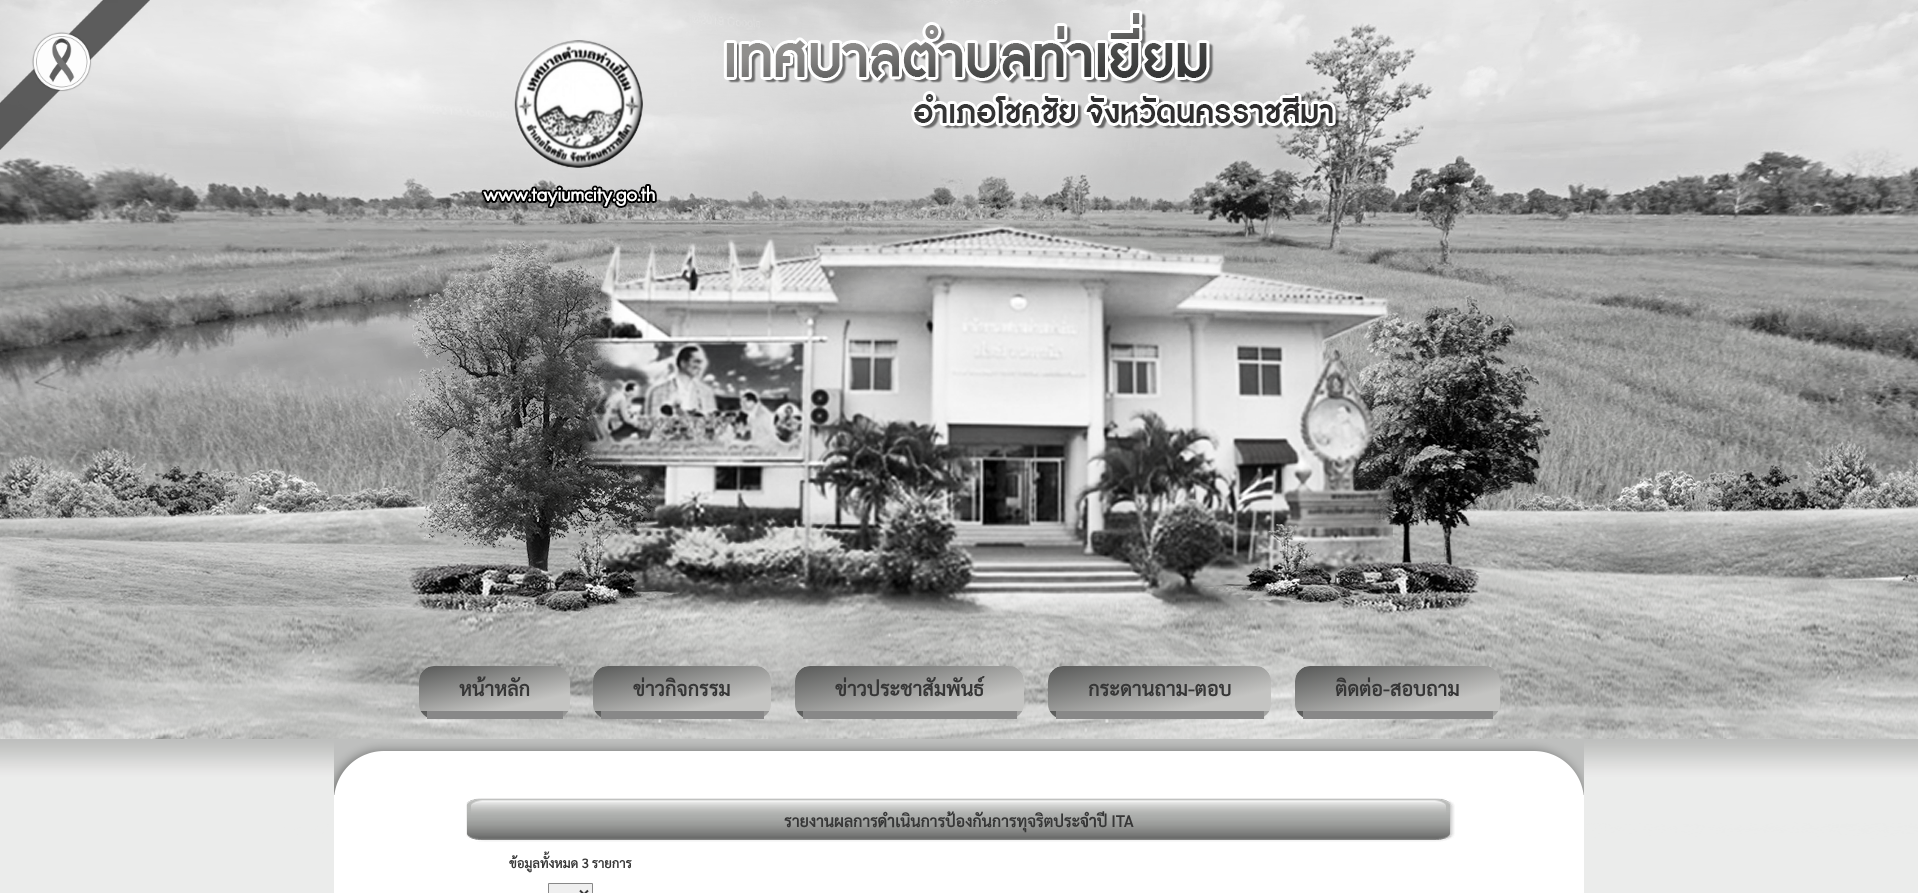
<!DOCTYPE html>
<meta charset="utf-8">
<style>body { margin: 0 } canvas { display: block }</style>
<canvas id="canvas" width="1918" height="893"></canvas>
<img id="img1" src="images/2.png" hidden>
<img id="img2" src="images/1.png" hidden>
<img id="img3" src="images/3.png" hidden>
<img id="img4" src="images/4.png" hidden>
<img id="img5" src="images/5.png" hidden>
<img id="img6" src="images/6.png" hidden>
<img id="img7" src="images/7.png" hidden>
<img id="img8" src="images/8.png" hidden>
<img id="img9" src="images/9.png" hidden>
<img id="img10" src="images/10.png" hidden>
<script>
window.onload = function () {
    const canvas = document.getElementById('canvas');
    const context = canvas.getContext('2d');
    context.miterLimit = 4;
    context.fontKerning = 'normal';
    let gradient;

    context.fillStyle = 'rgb(255, 255, 255)';
    context.fillRect(0, 0, 1918, 893);
    context.drawImage(document.getElementById('img1'), 0, 0, 334, 739);
    context.drawImage(document.getElementById('img2'), 0, 0, 150, 150);
    context.drawImage(document.getElementById('img3'), 334, 0, 1250, 739);
    context.drawImage(document.getElementById('img4'), 514, 40, 129, 128);
    context.drawImage(document.getElementById('img5'), 723, 10, 617, 120);
    context.save();
    context.beginPath();
    context.roundRect(419, 666, 151, 53, 15);
    context.clip();
    gradient = context.createLinearGradient(503, 726, 486, 651);
    gradient.addColorStop(0.22, 'rgb(196, 196, 194)');
    gradient.addColorStop(1, 'rgb(88, 89, 88)');
    context.fillStyle = gradient;
    context.beginPath();
    context.roundRect(419, 666, 151, 45, [15, 15, 0, 0]);
    context.fill();
    gradient = context.createLinearGradient(503, 771, 486, 696);
    gradient.addColorStop(0.22, 'rgb(196, 196, 194)');
    gradient.addColorStop(1, 'rgb(88, 89, 88)');
    context.fillStyle = gradient;
    context.fillRect(419, 711, 151, 7);
    context.restore();
    context.fillStyle = 'rgb(136, 136, 136)';
    context.fillRect(427, 711, 136, 8);
    context.save();
    context.beginPath();
    context.roundRect(593, 666, 178, 53, 15);
    context.clip();
    gradient = context.createLinearGradient(691, 729, 673, 648);
    gradient.addColorStop(0.22, 'rgb(196, 196, 194)');
    gradient.addColorStop(1, 'rgb(88, 89, 88)');
    context.fillStyle = gradient;
    context.beginPath();
    context.roundRect(593, 666, 178, 45, [15, 15, 0, 0]);
    context.fill();
    gradient = context.createLinearGradient(691, 774, 673, 693);
    gradient.addColorStop(0.22, 'rgb(196, 196, 194)');
    gradient.addColorStop(1, 'rgb(88, 89, 88)');
    context.fillStyle = gradient;
    context.fillRect(593, 711, 178, 7);
    context.restore();
    context.fillRect(601, 711, 163, 8);
    context.save();
    context.beginPath();
    context.roundRect(795, 666, 229, 53, 15);
    context.clip();
    gradient = context.createLinearGradient(920, 735, 899, 642);
    gradient.addColorStop(0.22, 'rgb(196, 196, 194)');
    gradient.addColorStop(1, 'rgb(88, 89, 88)');
    context.fillStyle = gradient;
    context.beginPath();
    context.roundRect(795, 666, 229, 45, [15, 15, 0, 0]);
    context.fill();
    gradient = context.createLinearGradient(920, 780, 899, 687);
    gradient.addColorStop(0.22, 'rgb(196, 196, 194)');
    gradient.addColorStop(1, 'rgb(88, 89, 88)');
    context.fillStyle = gradient;
    context.fillRect(795, 711, 229, 7);
    context.restore();
    context.fillRect(803, 711, 214, 8);
    context.save();
    context.beginPath();
    context.roundRect(1048, 666, 223, 53, 15);
    context.clip();
    gradient = context.createLinearGradient(1170, 734, 1149, 643);
    gradient.addColorStop(0.22, 'rgb(196, 196, 194)');
    gradient.addColorStop(1, 'rgb(88, 89, 88)');
    context.fillStyle = gradient;
    context.beginPath();
    context.roundRect(1048, 666, 223, 45, [15, 15, 0, 0]);
    context.fill();
    gradient = context.createLinearGradient(1170, 779, 1149, 688);
    gradient.addColorStop(0.22, 'rgb(196, 196, 194)');
    gradient.addColorStop(1, 'rgb(88, 89, 88)');
    context.fillStyle = gradient;
    context.fillRect(1048, 711, 223, 7);
    context.restore();
    context.fillRect(1056, 711, 208, 8);
    context.save();
    context.beginPath();
    context.roundRect(1295, 666, 205, 53, 15);
    context.clip();
    gradient = context.createLinearGradient(1408, 732, 1387, 645);
    gradient.addColorStop(0.22, 'rgb(196, 196, 194)');
    gradient.addColorStop(1, 'rgb(88, 89, 88)');
    context.fillStyle = gradient;
    context.beginPath();
    context.roundRect(1295, 666, 205, 45, [15, 15, 0, 0]);
    context.fill();
    gradient = context.createLinearGradient(1408, 777, 1387, 690);
    gradient.addColorStop(0.22, 'rgb(196, 196, 194)');
    gradient.addColorStop(1, 'rgb(88, 89, 88)');
    context.fillStyle = gradient;
    context.fillRect(1295, 711, 205, 7);
    context.restore();
    context.fillRect(1303, 711, 190, 8);
    context.drawImage(document.getElementById('img6'), 1584, 0, 334, 739);
    context.drawImage(document.getElementById('img7'), 0, 739, 334, 154);
    context.drawImage(document.getElementById('img8'), 334, 739, 1250, 56);
    context.drawImage(document.getElementById('img9'), 466, 798, 989, 44);
    context.fillStyle = 'rgb(239, 239, 239)';
    context.beginPath();
    context.rect(548.5, 883.5, 44, 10);
    context.fill();
    context.strokeStyle = 'rgb(136, 136, 136)';
    context.stroke();
    context.beginPath();
    context.moveTo(580, 890.5);
    context.lineTo(584, 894.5);
    context.lineTo(588, 890.5);
    context.strokeStyle = 'rgb(54, 54, 54)';
    context.lineWidth = 2;
    context.stroke();
    context.drawImage(document.getElementById('img10'), 1584, 739, 334, 154);
    context.font = 'bold 20px Sarabun';
    context.fillStyle = 'rgb(54, 54, 54)';
    context.fillText('หน้าหลัก', 459, 696);
    context.fillText('ข่าวกิจกรรม', 633, 696);
    context.fillText('ข่าวประชาสัมพันธ์', 835, 696);
    context.fillText('กระดานถาม-ตอบ', 1088, 696);
    context.fillText('ติดต่อ-สอบถาม', 1335, 696);
    context.font = 'bold 16px Sarabun';
    context.fillText('รายงานผลการดำเนินการป้องกันการทุจริตประจำปี ITA', 784, 827);
    context.font = 'bold 13px Sarabun';
    context.fillText('ข้อมูลทั้งหมด 3 รายการ', 509, 868);
};
</script>
